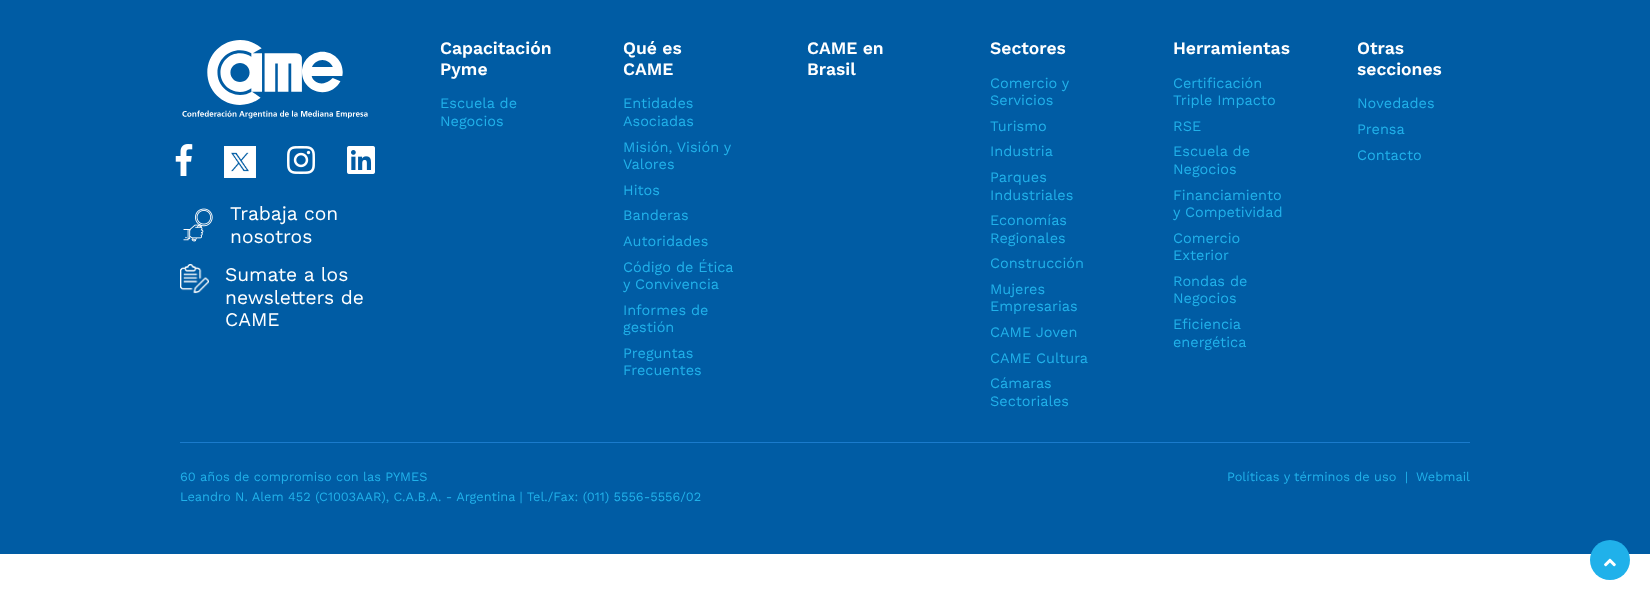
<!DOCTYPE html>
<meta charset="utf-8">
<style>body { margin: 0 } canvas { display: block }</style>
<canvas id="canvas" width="1650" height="594"></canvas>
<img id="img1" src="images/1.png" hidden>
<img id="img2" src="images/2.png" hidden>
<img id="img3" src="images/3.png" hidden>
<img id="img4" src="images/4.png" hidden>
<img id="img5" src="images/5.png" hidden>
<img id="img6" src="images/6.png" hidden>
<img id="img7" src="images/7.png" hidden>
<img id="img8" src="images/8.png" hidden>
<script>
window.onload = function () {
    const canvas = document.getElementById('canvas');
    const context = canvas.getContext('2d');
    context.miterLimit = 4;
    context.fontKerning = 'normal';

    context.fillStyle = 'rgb(255, 255, 255)';
    context.fillRect(0, 0, 1650, 594);
    context.fillStyle = 'rgb(0, 92, 164)';
    context.fillRect(0, 0, 1650, 554);
    context.drawImage(document.getElementById('img1'), 182, 40, 186, 79);
    context.drawImage(document.getElementById('img2'), 175, 144, 18, 32);
    context.drawImage(document.getElementById('img3'), 224, 146, 32, 32);
    context.drawImage(document.getElementById('img4'), 287, 146, 28, 28);
    context.drawImage(document.getElementById('img5'), 347, 146, 28, 28);
    context.drawImage(document.getElementById('img6'), 183, 208, 30, 34);
    context.drawImage(document.getElementById('img7'), 180, 264, 29, 30);
    context.fillStyle = 'rgb(26, 123, 204)';
    context.fillRect(180, 442, 1290, 1);
    context.fillStyle = 'rgb(32, 177, 234)';
    context.beginPath();
    context.arc(1610, 560, 20, 0, 2 * Math.PI);
    context.fill();
    context.drawImage(document.getElementById('img8'), 1604, 558, 12, 9);
    context.font = '19.25px Work Sans';
    context.fillStyle = 'rgb(255, 255, 255)';
    context.fillText('Trabaja con', 230, 220);
    context.fillText('nosotros', 230, 243);
    context.fillText('Sumate a los', 225, 281);
    context.fillText('newsletters de', 225, 304);
    context.fillText('CAME', 225, 326);
    context.font = '600 17.5px Work Sans';
    context.fillText('Capacitación', 440, 54);
    context.fillText('Pyme', 440, 75);
    context.font = '14.5px Work Sans';
    context.fillStyle = 'rgb(32, 177, 234)';
    context.fillText('Escuela de', 440, 108);
    context.fillText('Negocios', 440, 126);
    context.font = '600 17.5px Work Sans';
    context.fillStyle = 'rgb(255, 255, 255)';
    context.fillText('Qué es', 623, 54);
    context.fillText('CAME', 623, 75);
    context.font = '14.5px Work Sans';
    context.fillStyle = 'rgb(32, 177, 234)';
    context.fillText('Entidades', 623, 108);
    context.fillText('Asociadas', 623, 126);
    context.fillText('Misión, Visión y', 623, 152);
    context.fillText('Valores', 623, 169);
    context.fillText('Hitos', 623, 195);
    context.fillText('Banderas', 623, 220);
    context.fillText('Autoridades', 623, 246);
    context.fillText('Código de Ética', 623, 272);
    context.fillText('y Convivencia', 623, 289);
    context.fillText('Informes de', 623, 315);
    context.fillText('gestión', 623, 332);
    context.fillText('Preguntas', 623, 358);
    context.fillText('Frecuentes', 623, 375);
    context.font = '600 17.5px Work Sans';
    context.fillStyle = 'rgb(255, 255, 255)';
    context.fillText('CAME en', 807, 54);
    context.fillText('Brasil', 807, 75);
    context.fillText('Sectores', 990, 54);
    context.font = '14.5px Work Sans';
    context.fillStyle = 'rgb(32, 177, 234)';
    context.fillText('Comercio y', 990, 88);
    context.fillText('Servicios', 990, 105);
    context.fillText('Turismo', 990, 131);
    context.fillText('Industria', 990, 156);
    context.fillText('Parques', 990, 182);
    context.fillText('Industriales', 990, 200);
    context.fillText('Economías', 990, 225);
    context.fillText('Regionales', 990, 243);
    context.fillText('Construcción', 990, 268);
    context.fillText('Mujeres', 990, 294);
    context.fillText('Empresarias', 990, 311);
    context.fillText('CAME Joven', 990, 337);
    context.fillText('CAME Cultura', 990, 363);
    context.fillText('Cámaras', 990, 388);
    context.fillText('Sectoriales', 990, 406);
    context.font = '600 17.5px Work Sans';
    context.fillStyle = 'rgb(255, 255, 255)';
    context.fillText('Herramientas', 1173, 54);
    context.font = '14.5px Work Sans';
    context.fillStyle = 'rgb(32, 177, 234)';
    context.fillText('Certificación', 1173, 88);
    context.fillText('Triple Impacto', 1173, 105);
    context.fillText('RSE', 1173, 131);
    context.fillText('Escuela de', 1173, 156);
    context.fillText('Negocios', 1173, 174);
    context.fillText('Financiamiento', 1173, 200);
    context.fillText('y Competividad', 1173, 217);
    context.fillText('Comercio', 1173, 243);
    context.fillText('Exterior', 1173, 260);
    context.fillText('Rondas de', 1173, 286);
    context.fillText('Negocios', 1173, 303);
    context.fillText('Eficiencia', 1173, 329);
    context.fillText('energética', 1173, 347);
    context.font = '600 17.5px Work Sans';
    context.fillStyle = 'rgb(255, 255, 255)';
    context.fillText('Otras', 1357, 54);
    context.fillText('secciones', 1357, 75);
    context.font = '14.5px Work Sans';
    context.fillStyle = 'rgb(32, 177, 234)';
    context.fillText('Novedades', 1357, 108);
    context.fillText('Prensa', 1357, 134);
    context.fillText('Contacto', 1357, 160);
    context.font = '12.8px Work Sans';
    context.fillText('60 años de compromiso con las PYMES', 180, 481);
    context.fillText('Leandro N. Alem 452 (C1003AAR), C.A.B.A. - Argentina | Tel./Fax: (011) 5556-5556/02', 180, 501);
    context.fillText('Políticas y términos de uso', 1227, 481);
    context.fillText('|', 1405, 481);
    context.fillText('Webmail', 1416, 481);
};
</script>
